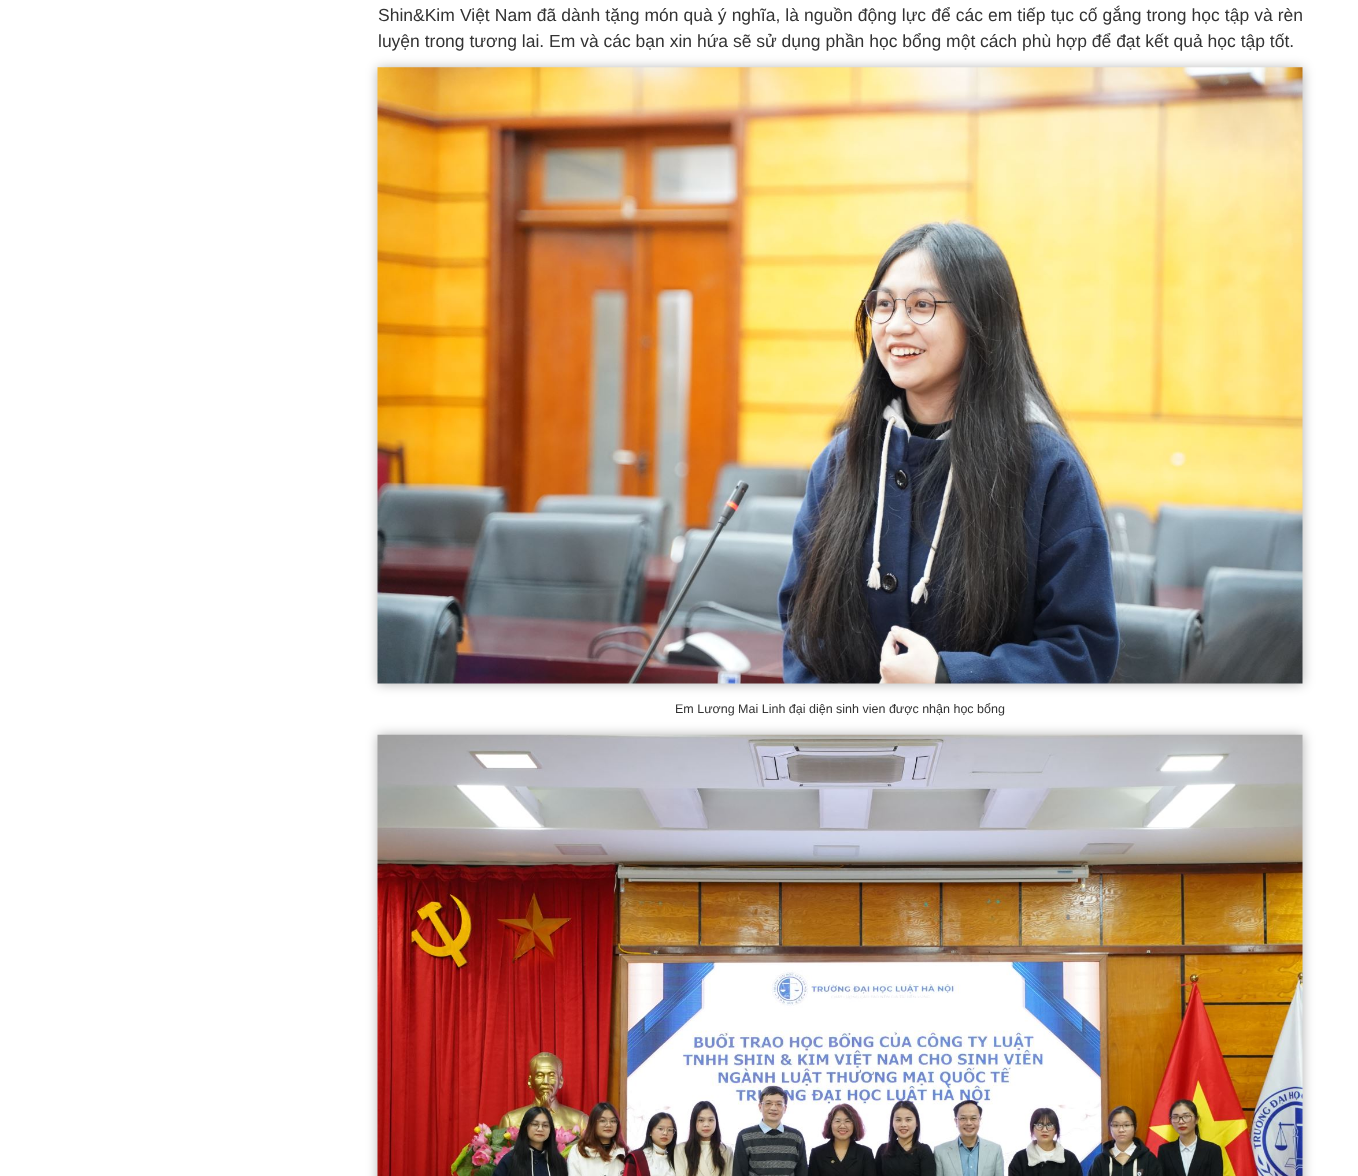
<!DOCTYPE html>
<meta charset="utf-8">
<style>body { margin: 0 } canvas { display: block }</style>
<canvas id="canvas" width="1358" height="1176"></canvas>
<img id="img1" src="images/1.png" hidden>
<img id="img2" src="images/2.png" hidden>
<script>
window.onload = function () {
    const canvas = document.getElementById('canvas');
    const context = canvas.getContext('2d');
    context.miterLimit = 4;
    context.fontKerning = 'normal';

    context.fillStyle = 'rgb(255, 255, 255)';
    context.fillRect(0, 0, 1358, 1176);
    context.fillStyle = 'rgba(0, 0, 0, 0.3)';
    context.filter = 'blur(6px)';
    context.beginPath();
    context.rect(378, 68, 925, 616);
    context.fill();
    context.filter = 'none';
    context.drawImage(document.getElementById('img1'), 377, 67, 926, 617);
    context.filter = 'blur(6px)';
    context.beginPath();
    context.rect(378, 735, 925, 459);
    context.fill();
    context.filter = 'none';
    context.drawImage(document.getElementById('img2'), 377, 734, 926, 442);
    context.wordSpacing = '0.2px';
    context.font = '17.5px Liberation Sans';
    context.fillStyle = 'rgb(51, 51, 51)';
    context.fillText('Shin&Kim Việt Nam đã dành tặng món quà ý nghĩa, là nguồn động lực để các em tiếp tục cố gắng trong học tập và rèn', 378, 21);
    context.wordSpacing = '0px';
    context.fillText('luyện trong tương lai. Em và các bạn xin hứa sẽ sử dụng phần học bổng một cách phù hợp để đạt kết quả học tập tốt.', 378, 47);
    context.font = '12.5px Liberation Sans';
    context.fillText('Em Lương Mai Linh đại diện sinh vien được nhận học bổng', 675, 713);
};
</script>
